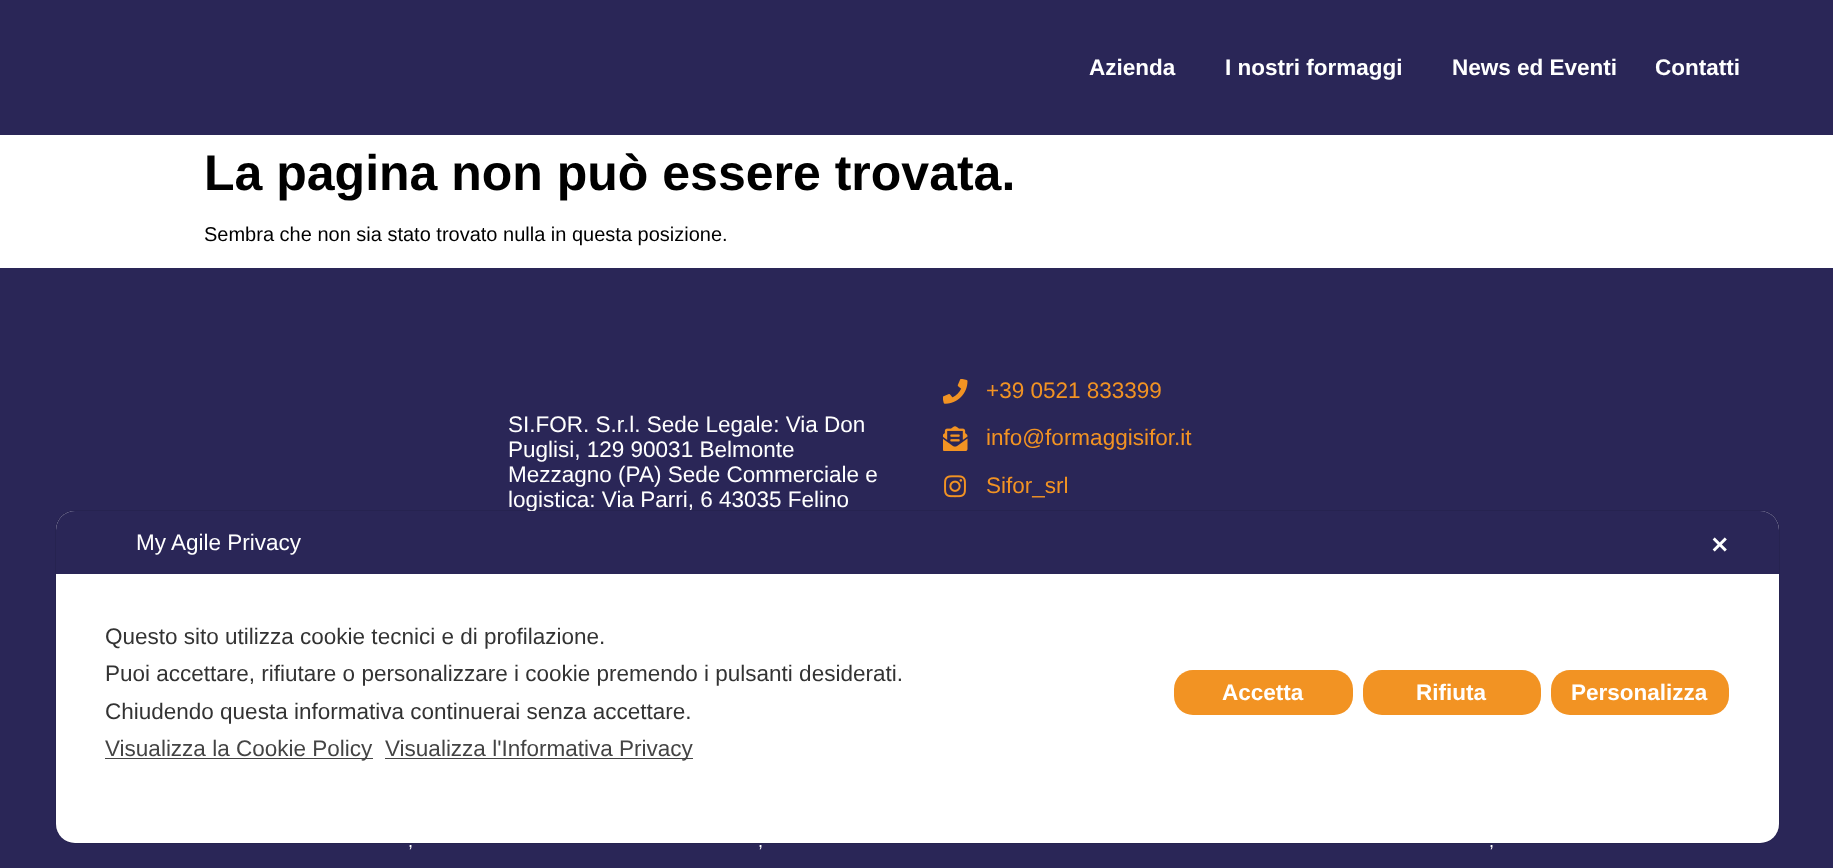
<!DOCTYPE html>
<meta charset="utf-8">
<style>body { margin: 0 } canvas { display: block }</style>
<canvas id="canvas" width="1833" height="868"></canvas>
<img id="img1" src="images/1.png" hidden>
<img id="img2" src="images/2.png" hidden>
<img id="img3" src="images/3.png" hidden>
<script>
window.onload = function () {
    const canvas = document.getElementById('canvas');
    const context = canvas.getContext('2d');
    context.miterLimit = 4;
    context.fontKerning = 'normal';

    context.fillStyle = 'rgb(255, 255, 255)';
    context.fillRect(0, 0, 1833, 868);
    context.fillStyle = 'rgb(42, 38, 87)';
    context.fillRect(0, 0, 1833, 135);
    context.fillRect(0, 268, 1833, 600);
    context.drawImage(document.getElementById('img1'), 943, 379, 25, 25);
    context.drawImage(document.getElementById('img2'), 943, 426, 25, 25);
    context.drawImage(document.getElementById('img3'), 944, 475, 22, 23);
    context.font = 'bold 22.5px Liberation Sans';
    context.fillStyle = 'rgb(255, 255, 255)';
    context.fillText('Azienda', 1089, 75);
    context.fillText('I nostri formaggi', 1225, 75);
    context.fillText('News ed Eventi', 1452, 75);
    context.fillText('Contatti', 1655, 75);
    context.font = 'bold 50px Liberation Sans';
    context.fillStyle = 'rgb(0, 0, 0)';
    context.fillText('La pagina non può essere trovata.', 204, 190);
    context.font = '20px Liberation Sans';
    context.fillText('Sembra che non sia stato trovato nulla in questa posizione.', 204, 241);
    context.font = '22.5px Liberation Sans';
    context.fillStyle = 'rgb(255, 255, 255)';
    context.fillText('SI.FOR. S.r.l. Sede Legale: Via Don', 508, 432);
    context.fillText('Puglisi, 129 90031 Belmonte', 508, 457);
    context.fillText('Mezzagno (PA) Sede Commerciale e', 508, 482);
    context.fillText('logistica: Via Parri, 6 43035 Felino', 508, 507);
    context.fillStyle = 'rgb(242, 147, 35)';
    context.fillText('+39 0521 833399', 986, 398);
    context.fillText('info@formaggisifor.it', 986, 445);
    context.fillText('Sifor_srl', 986, 493);
    context.font = '18px Liberation Sans';
    context.fillStyle = 'rgb(255, 255, 255)';
    context.fillText(',', 408, 847);
    context.fillText(',', 758, 847);
    context.fillText(',', 1489, 847);
    context.beginPath();
    context.roundRect(55.5, 510.5, 1724, 333, 19.5);
    context.strokeStyle = 'rgba(0, 0, 0, 0.08)';
    context.stroke();
    context.beginPath();
    context.roundRect(56, 511, 1723, 332, 19);
    context.fill();
    context.fillStyle = 'rgb(42, 38, 87)';
    context.beginPath();
    context.roundRect(56, 511, 1723, 63, [19, 19, 0, 0]);
    context.fill();
    context.font = '22.5px Liberation Sans';
    context.fillStyle = 'rgb(255, 255, 255)';
    context.fillText('My Agile Privacy', 136, 550);
    context.font = 'bold 22.5px DejaVu Sans';
    context.fillText('✕', 1710, 553);
    context.font = '22.5px Liberation Sans';
    context.fillStyle = 'rgb(51, 51, 51)';
    context.fillText('Questo sito utilizza cookie tecnici e di profilazione.', 105, 644);
    context.fillText('Puoi accettare, rifiutare o personalizzare i cookie premendo i pulsanti desiderati.', 105, 681);
    context.fillText('Chiudendo questa informativa continuerai senza accettare.', 105, 719);
    context.fillStyle = 'rgb(68, 68, 68)';
    context.fillRect(105, 758, 268, 1);
    context.fillText('Visualizza la Cookie Policy', 105, 756);
    context.fillRect(385, 758, 308, 1);
    context.fillText('Visualizza l\'Informativa Privacy', 385, 756);
    context.fillStyle = 'rgb(242, 147, 35)';
    context.beginPath();
    context.roundRect(1174, 670, 179, 45, 19);
    context.fill();
    context.font = 'bold 22.5px Liberation Sans';
    context.fillStyle = 'rgb(255, 255, 255)';
    context.fillText('Accetta', 1222, 700);
    context.fillStyle = 'rgb(242, 147, 35)';
    context.beginPath();
    context.roundRect(1363, 670, 178, 45, 19);
    context.fill();
    context.fillStyle = 'rgb(255, 255, 255)';
    context.fillText('Rifiuta', 1416, 700);
    context.fillStyle = 'rgb(242, 147, 35)';
    context.beginPath();
    context.roundRect(1551, 670, 178, 45, 19);
    context.fill();
    context.fillStyle = 'rgb(255, 255, 255)';
    context.fillText('Personalizza', 1571, 700);
};
</script>
